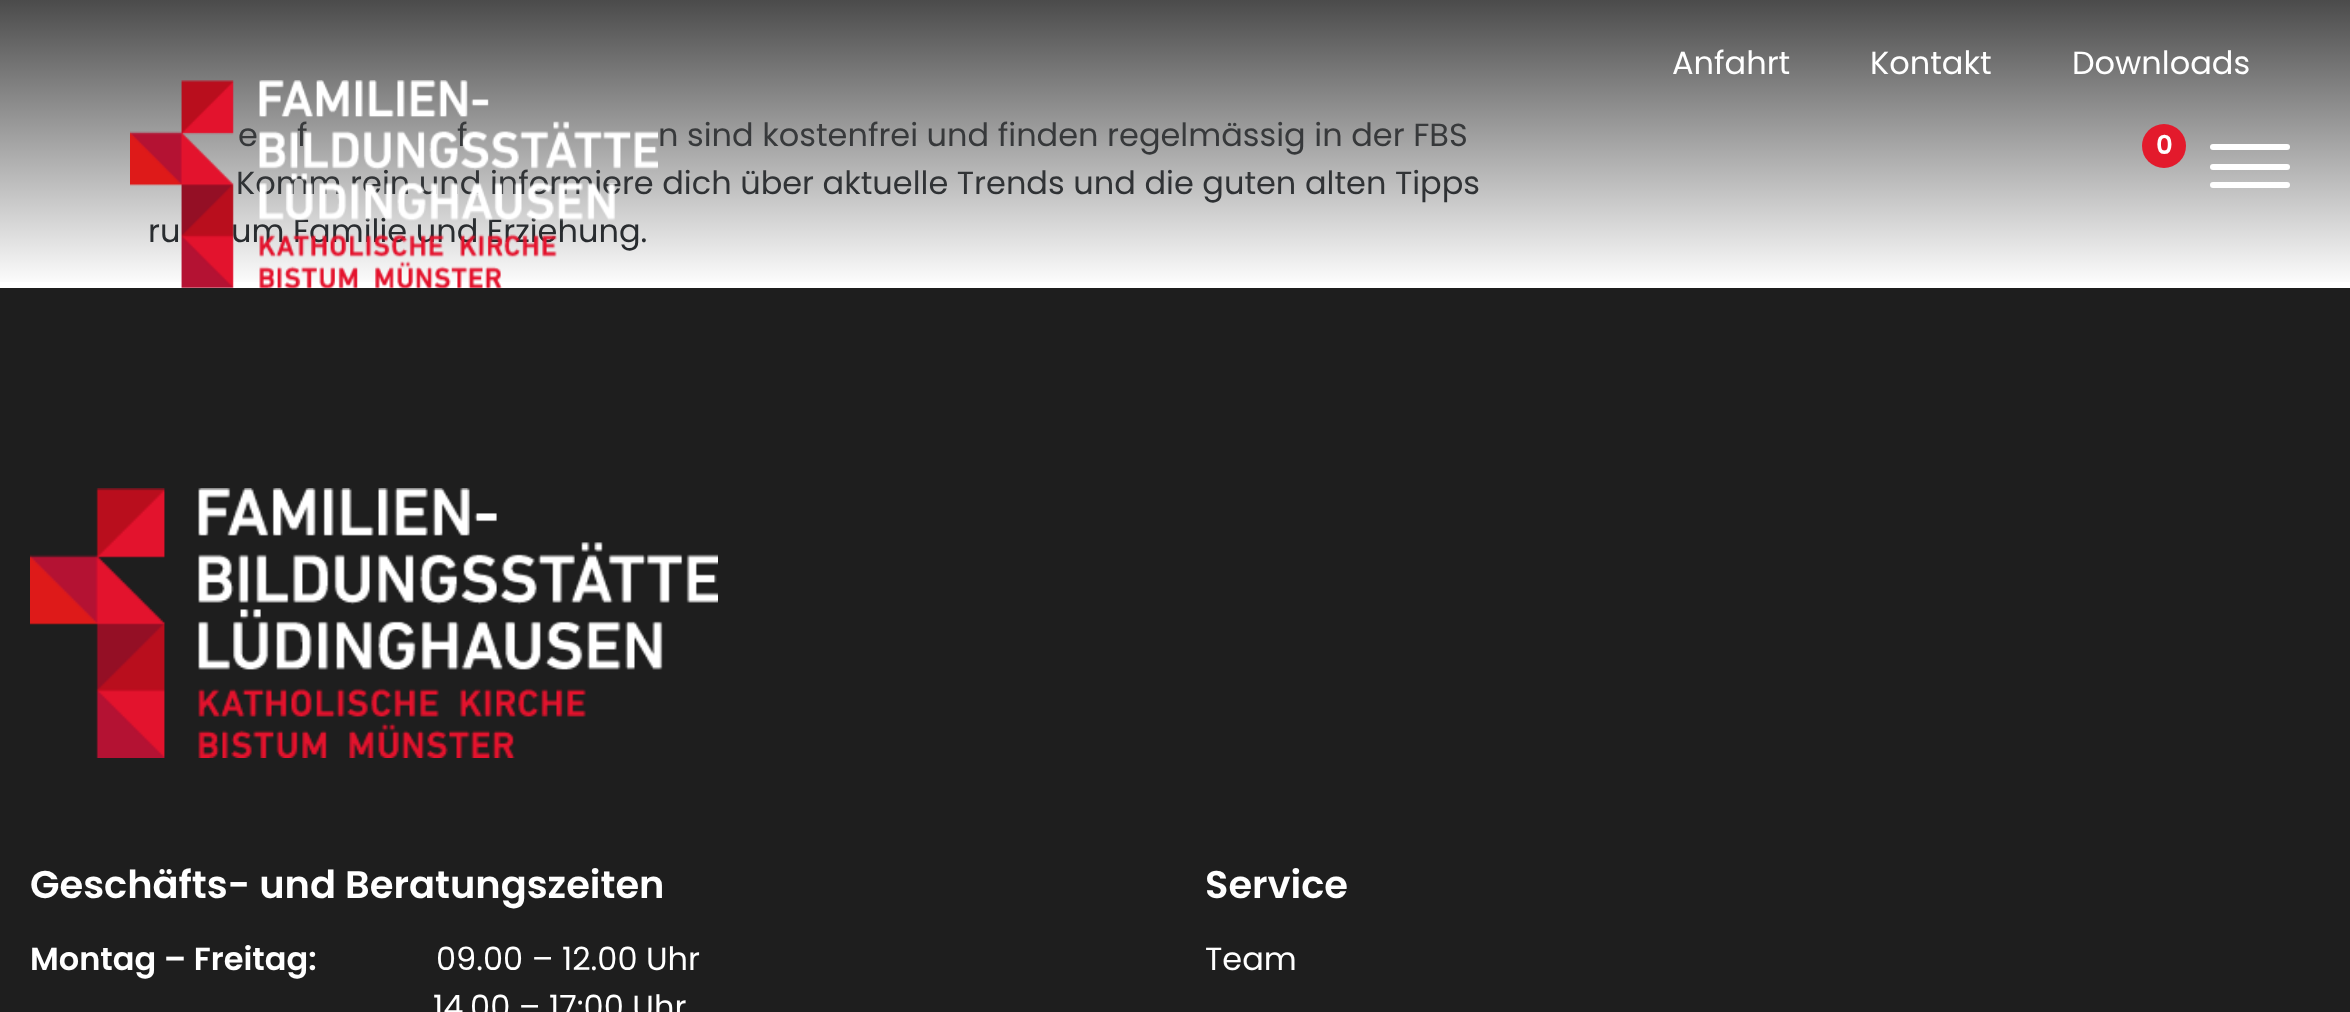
<!DOCTYPE html>
<meta charset="utf-8">
<style>body { margin: 0 } canvas { display: block }</style>
<canvas id="canvas" width="2350" height="1012"></canvas>
<img id="img1" src="images/2.png" hidden>
<img id="img2" src="images/1.png" hidden>
<script>
window.onload = function () {
    const canvas = document.getElementById('canvas');
    const context = canvas.getContext('2d');
    context.miterLimit = 4;
    context.fontKerning = 'normal';
    let gradient;

    context.fillStyle = 'rgb(255, 255, 255)';
    context.fillRect(0, 0, 2350, 1012);
    context.fillStyle = 'rgb(30, 30, 30)';
    context.fillRect(0, 288, 2350, 724);
    context.drawImage(document.getElementById('img1'), 30, 488, 688, 270);
    context.font = '32px Poppins';
    context.fillStyle = 'rgb(33, 37, 41)';
    context.fillText('e', 238, 146);
    context.fillText('f', 297, 146);
    context.fillText('f', 457, 146);
    context.fillText('n sind kostenfrei und finden regelmässig in der FBS', 658, 146);
    context.fillText('Komm rein und informiere dich über aktuelle Trends und die guten alten Tipps', 236, 194);
    context.fillText('ru', 148, 242);
    context.fillText('um Familie und Erziehung.', 231, 242);
    gradient = context.createLinearGradient(1175, 288, 1175, 0);
    gradient.addColorStop(0, 'rgba(75, 75, 75, 0)');
    gradient.addColorStop(1, 'rgb(75, 75, 75)');
    context.fillStyle = gradient;
    context.fillRect(0, 0, 2350, 282);
    context.fillStyle = 'rgb(255, 255, 255)';
    context.beginPath();
    context.roundRect(2210, 182, 80, 6, 3);
    context.fill();
    context.beginPath();
    context.roundRect(2210, 164, 80, 6, 3);
    context.fill();
    context.beginPath();
    context.roundRect(2210, 144, 80, 6, 3);
    context.fill();
    context.fillStyle = 'rgb(227, 26, 44)';
    context.beginPath();
    context.arc(2164, 146, 22, 0, 2 * Math.PI);
    context.fill();
    context.font = '600 26px Poppins';
    context.fillStyle = 'rgb(255, 255, 255)';
    context.fillText('0', 2156, 154);
    context.font = '32px Poppins';
    context.fillText('Downloads', 2072, 74);
    context.fillText('Kontakt', 1870, 74);
    context.fillText('Anfahrt', 1672, 74);
    context.drawImage(document.getElementById('img2'), 130, 80, 528, 208);
    context.font = '600 38.4px Poppins';
    context.fillText('Geschäfts- und Beratungszeiten', 30, 898);
    context.font = '600 32px Poppins';
    context.fillText('Montag – Freitag:', 30, 970);
    context.font = '32px Poppins';
    context.fillText('09.00 – 12.00 Uhr', 436, 970);
    context.fillText('14.00 – 17:00 Uhr', 433, 1018);
    context.font = '600 38.4px Poppins';
    context.fillText('Service', 1205, 898);
    context.font = '32px Poppins';
    context.fillText('Team', 1205, 970);
};
</script>
